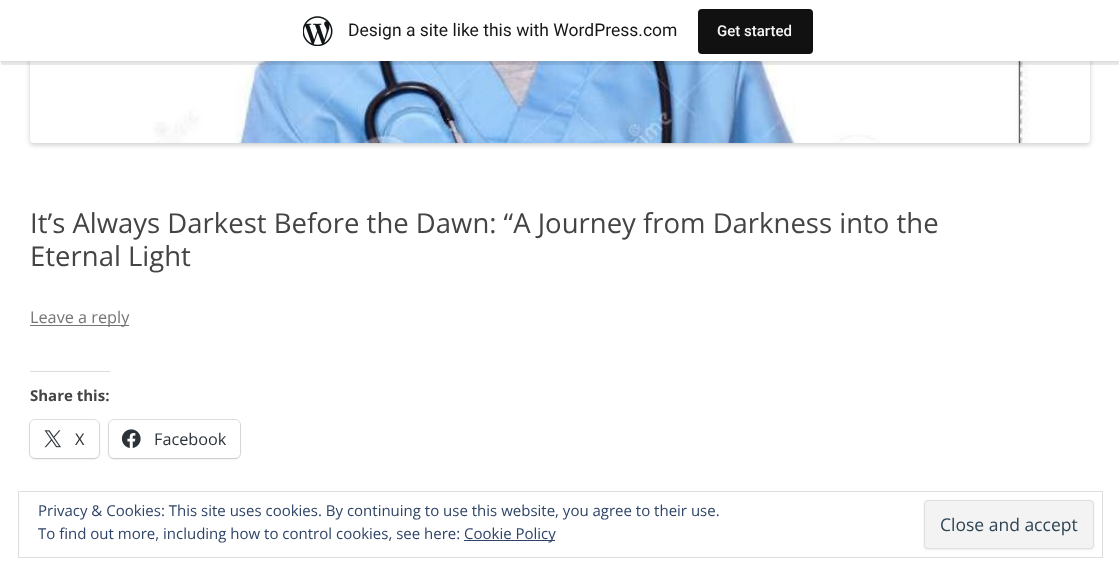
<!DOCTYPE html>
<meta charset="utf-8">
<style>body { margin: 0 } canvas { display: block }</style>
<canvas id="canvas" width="1119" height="575"></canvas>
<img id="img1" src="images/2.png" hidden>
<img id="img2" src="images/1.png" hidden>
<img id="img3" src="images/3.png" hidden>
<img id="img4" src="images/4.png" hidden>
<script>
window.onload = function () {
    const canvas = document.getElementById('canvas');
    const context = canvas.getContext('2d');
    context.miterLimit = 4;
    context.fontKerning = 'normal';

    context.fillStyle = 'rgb(255, 255, 255)';
    context.fillRect(0, 0, 1119, 575);
    context.fillStyle = 'rgba(0, 0, 0, 0.2)';
    context.filter = 'blur(2.5px)';
    context.beginPath();
    context.roundRect(30, -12, 1060, 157, 4);
    context.fill();
    context.filter = 'none';
    context.drawImage(document.getElementById('img1'), 30, 61, 1060, 83);
    context.fillStyle = 'rgba(0, 0, 0, 0.05)';
    context.filter = 'blur(1px)';
    context.beginPath();
    context.rect(0, 1, 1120, 62);
    context.fill();
    context.filter = 'none';
    context.fillStyle = 'rgba(0, 0, 0, 0.08)';
    context.beginPath();
    context.moveTo(1, 61);
    context.lineTo(1, 65);
    context.lineTo(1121, 65);
    context.lineTo(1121, 4);
    context.lineTo(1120, 4);
    context.lineTo(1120, 61);
    context.closePath();
    context.fill();
    context.fillStyle = 'rgb(255, 255, 255)';
    context.fillRect(0, 0, 1119, 61);
    context.drawImage(document.getElementById('img2'), 303, 16, 30, 30);
    context.fillStyle = 'rgb(17, 17, 17)';
    context.beginPath();
    context.roundRect(698, 9, 115, 45, 4);
    context.fill();
    context.fillStyle = 'rgb(117, 117, 117)';
    context.fillRect(30, 325, 99, 1);
    context.fillStyle = 'rgb(220, 220, 222)';
    context.fillRect(30, 371, 80, 1);
    context.beginPath();
    context.roundRect(29.5, 419.5, 70, 39, 5.5);
    context.strokeStyle = 'rgb(224, 224, 224)';
    context.stroke();
    context.fillStyle = 'rgba(0, 0, 0, 0.12)';
    context.filter = 'blur(1px)';
    context.beginPath();
    context.roundRect(30, 421, 69, 38, 5);
    context.fill();
    context.filter = 'none';
    context.fillStyle = 'rgb(255, 255, 255)';
    context.beginPath();
    context.roundRect(30, 420, 69, 38, 5);
    context.fill();
    context.drawImage(document.getElementById('img3'), 44, 430, 17, 18);
    context.beginPath();
    context.roundRect(108.5, 419.5, 132, 39, 5.5);
    context.stroke();
    context.fillStyle = 'rgba(0, 0, 0, 0.12)';
    context.filter = 'blur(1px)';
    context.beginPath();
    context.roundRect(109, 421, 131, 38, 5);
    context.fill();
    context.filter = 'none';
    context.fillStyle = 'rgb(255, 255, 255)';
    context.beginPath();
    context.roundRect(109, 420, 131, 38, 5);
    context.fill();
    context.drawImage(document.getElementById('img4'), 121, 429, 20, 19);
    context.strokeStyle = 'rgb(222, 222, 222)';
    context.strokeRect(18.5, 491.5, 1084, 66);
    context.fillStyle = 'rgb(46, 68, 103)';
    context.fillRect(464, 540, 91, 1);
    context.fillStyle = 'rgba(64, 64, 64, 0.1)';
    context.filter = 'blur(1px)';
    context.beginPath();
    context.roundRect(924, 501, 170, 49, 4);
    context.fill();
    context.filter = 'none';
    context.fillStyle = 'rgb(243, 243, 243)';
    context.beginPath();
    context.roundRect(924.5, 500.5, 169, 48, 3.5);
    context.fill();
    context.stroke();
    context.font = '17.5px Roboto';
    context.fillStyle = 'rgb(23, 23, 23)';
    context.fillText('Design a site like this with WordPress.com', 348, 36);
    context.font = '500 15px Roboto';
    context.fillStyle = 'rgb(246, 247, 247)';
    context.fillText('Get started', 717, 36);
    context.font = '27.5px Open Sans';
    context.fillStyle = 'rgb(68, 68, 68)';
    context.fillText('It’s Always Darkest Before the Dawn: “A Journey from Darkness into the', 30, 233);
    context.fillText('Eternal Light', 30, 266);
    context.font = '16.25px Open Sans';
    context.fillStyle = 'rgb(117, 117, 117)';
    context.fillText('Leave a reply', 30, 323);
    context.font = 'bold 15px Open Sans';
    context.fillStyle = 'rgb(68, 68, 68)';
    context.fillText('Share this:', 30, 401);
    context.font = '16.25px Open Sans';
    context.fillStyle = 'rgb(44, 51, 56)';
    context.fillText('X', 75, 445);
    context.fillText('Facebook', 154, 445);
    context.font = '15px Open Sans';
    context.fillStyle = 'rgb(46, 68, 103)';
    context.fillText('Privacy & Cookies: This site uses cookies. By continuing to use this website, you agree to their use.', 38, 516);
    context.fillText('To find out more, including how to control cookies, see here:', 38, 539);
    context.fillText('Cookie Policy', 464, 539);
    context.font = '17.5px Open Sans';
    context.fillStyle = 'rgb(46, 68, 83)';
    context.fillText('Close and accept', 940, 531);
};
</script>
